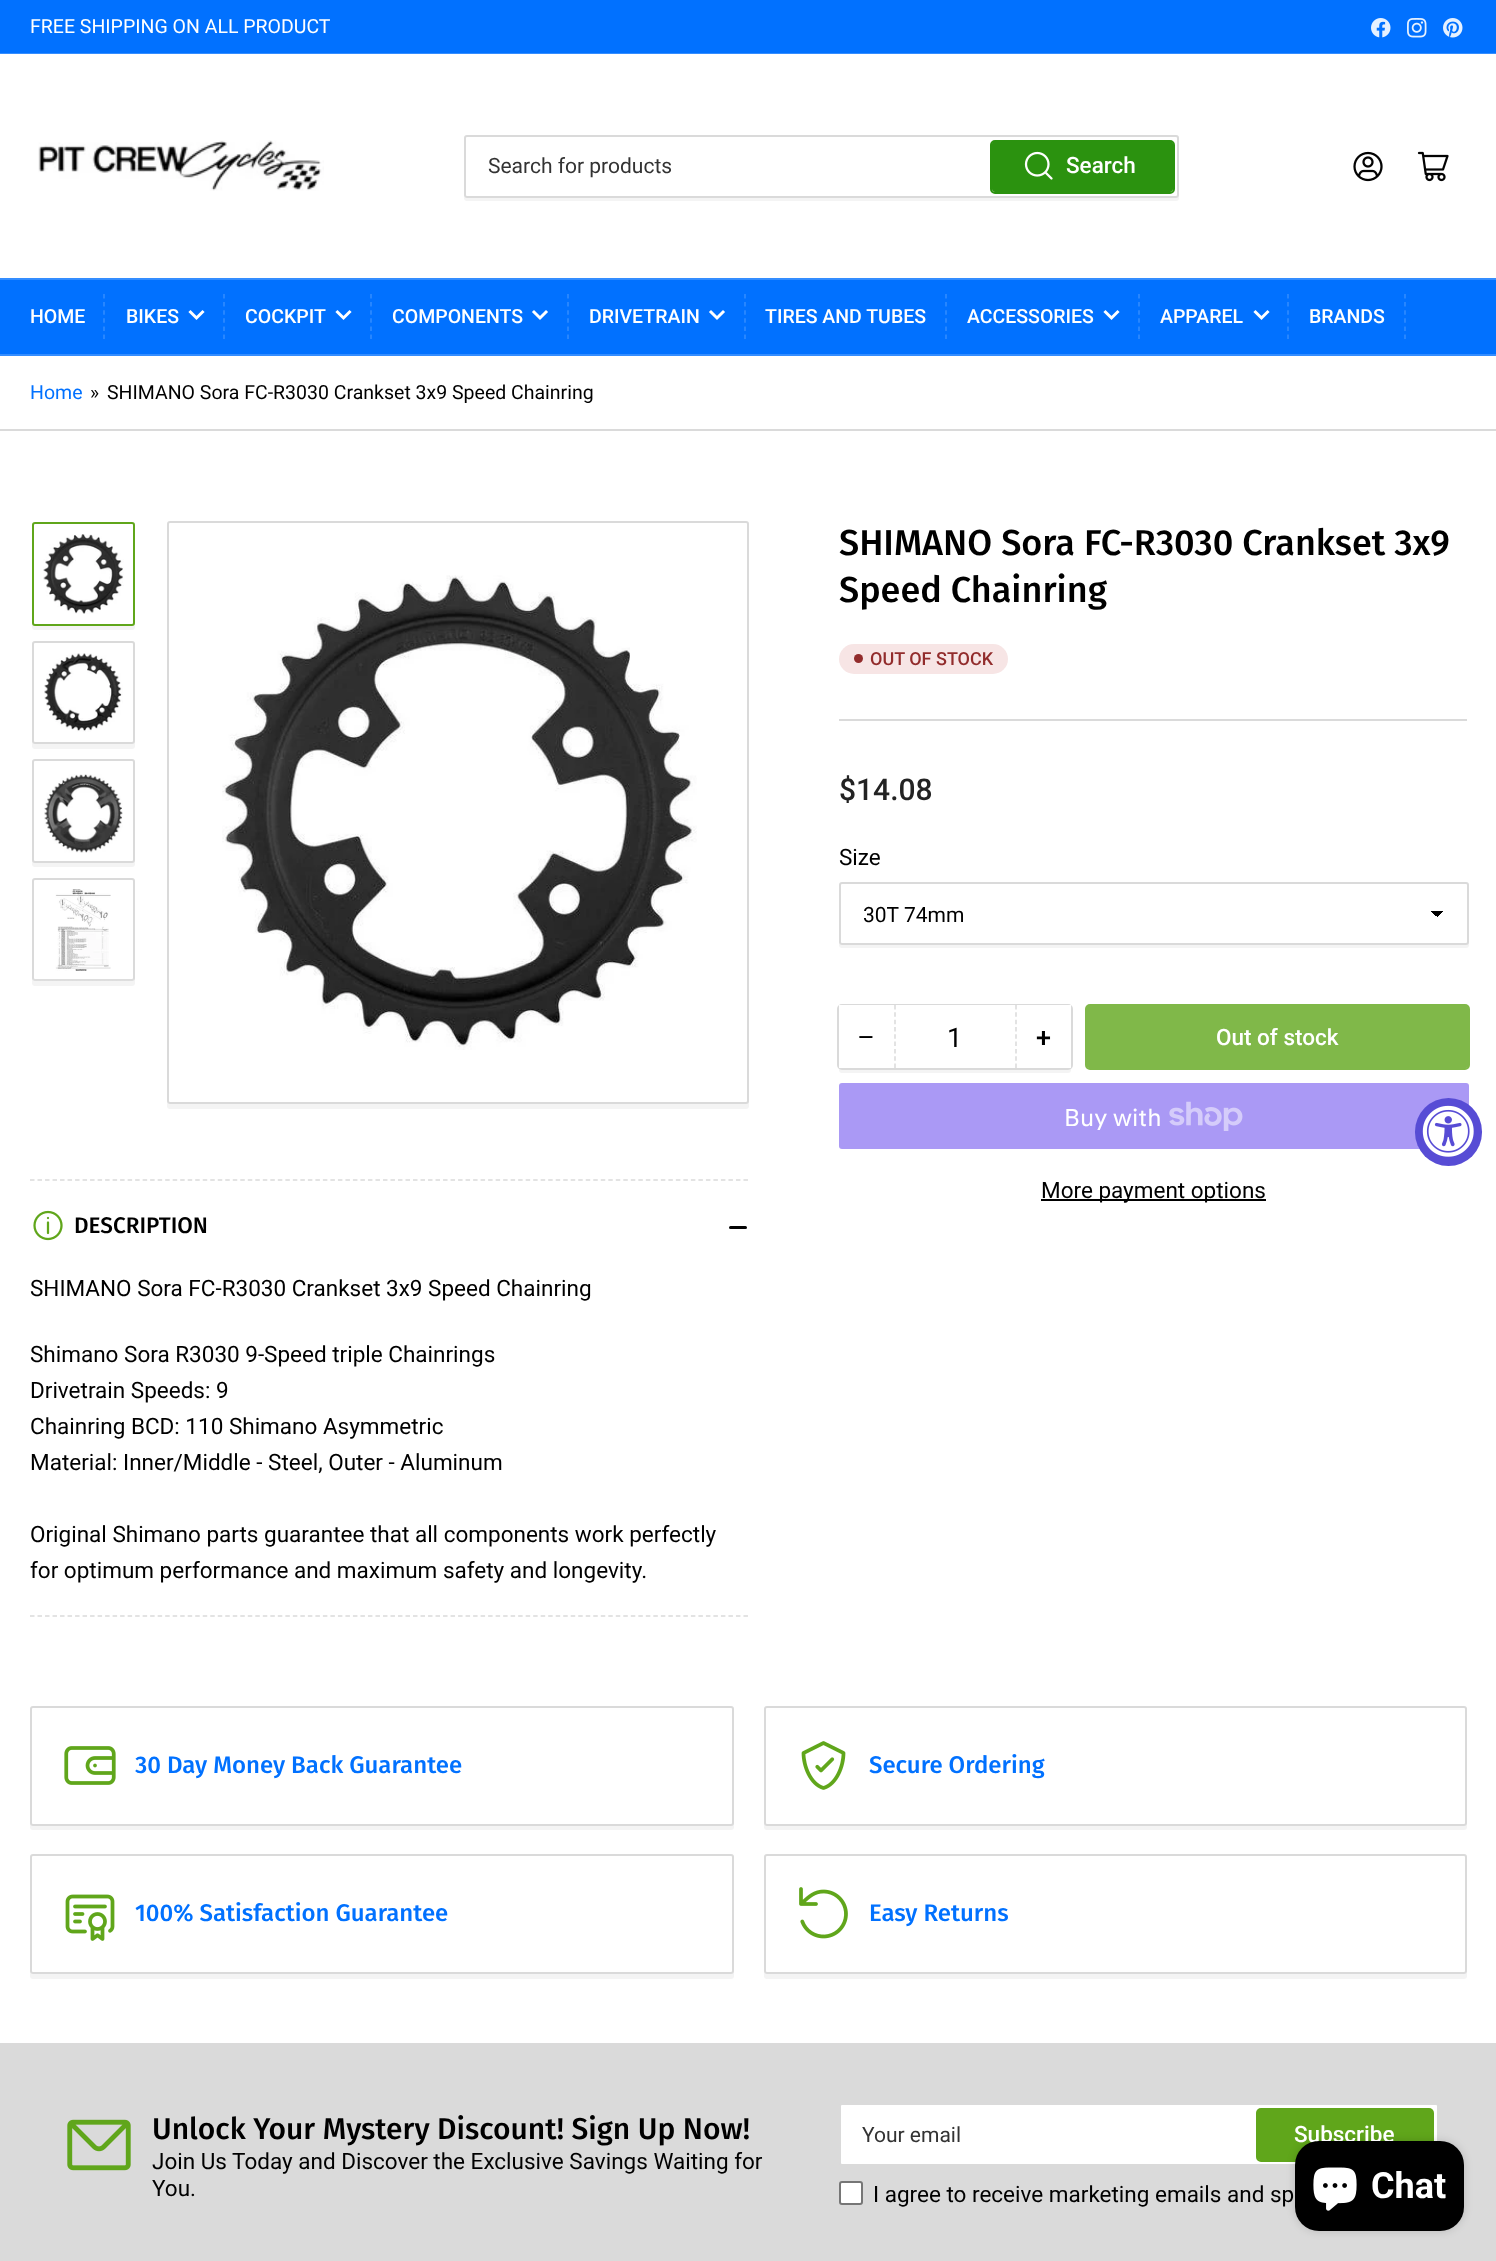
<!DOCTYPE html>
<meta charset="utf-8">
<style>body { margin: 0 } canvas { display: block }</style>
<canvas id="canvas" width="1496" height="2261"></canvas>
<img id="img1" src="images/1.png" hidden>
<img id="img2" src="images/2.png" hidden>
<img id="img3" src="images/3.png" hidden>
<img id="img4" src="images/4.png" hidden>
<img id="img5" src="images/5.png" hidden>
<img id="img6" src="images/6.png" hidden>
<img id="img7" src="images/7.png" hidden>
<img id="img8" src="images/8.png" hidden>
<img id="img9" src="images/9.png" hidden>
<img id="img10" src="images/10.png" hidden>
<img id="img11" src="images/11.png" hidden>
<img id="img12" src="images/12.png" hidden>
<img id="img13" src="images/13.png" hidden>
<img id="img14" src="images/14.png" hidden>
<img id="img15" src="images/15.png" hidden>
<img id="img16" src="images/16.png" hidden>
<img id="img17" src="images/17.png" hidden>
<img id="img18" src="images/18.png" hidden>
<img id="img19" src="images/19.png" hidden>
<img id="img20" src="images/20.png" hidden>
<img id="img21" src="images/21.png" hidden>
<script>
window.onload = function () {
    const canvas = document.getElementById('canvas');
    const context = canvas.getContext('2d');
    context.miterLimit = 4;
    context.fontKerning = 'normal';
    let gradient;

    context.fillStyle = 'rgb(255, 255, 255)';
    context.fillRect(0, 0, 1496, 2261);
    context.fillStyle = 'rgb(1, 113, 255)';
    context.fillRect(0, 0, 1496, 53);
    context.fillStyle = 'rgb(52, 141, 255)';
    context.fillRect(0, 53, 1496, 1);
    context.drawImage(document.getElementById('img1'), 1371, 18, 20, 20);
    context.drawImage(document.getElementById('img2'), 1407, 18, 20, 20);
    context.drawImage(document.getElementById('img3'), 1443, 18, 20, 20);
    context.drawImage(document.getElementById('img4'), 38, 140, 286, 51);
    context.fillStyle = 'rgb(244, 244, 244)';
    context.beginPath();
    context.moveTo(464, 197);
    context.lineTo(464, 198);
    context.bezierCurveTo(464, 200, 465, 201, 467, 201);
    context.lineTo(1176, 201);
    context.bezierCurveTo(1178, 201, 1179, 200, 1179, 198);
    context.lineTo(1179, 195);
    context.bezierCurveTo(1179, 197, 1178, 198, 1176, 198);
    context.lineTo(466, 198);
    context.bezierCurveTo(465, 198, 465, 197, 464, 197);
    context.closePath();
    context.fill();
    context.beginPath();
    context.roundRect(465, 136, 713, 61, 2);
    context.strokeStyle = 'rgb(218, 218, 218)';
    context.lineWidth = 2;
    context.stroke();
    context.beginPath();
    context.roundRect(991, 141, 183, 52, 4);
    context.strokeStyle = 'rgb(43, 146, 15)';
    context.stroke();
    context.fillStyle = 'rgb(43, 146, 15)';
    context.beginPath();
    context.roundRect(992, 141, 181, 51, 3);
    context.fill();
    context.drawImage(document.getElementById('img5'), 1024, 151, 29, 29);
    context.drawImage(document.getElementById('img6'), 1353, 151, 30, 31);
    context.drawImage(document.getElementById('img7'), 1417, 151, 32, 31);
    context.fillStyle = 'rgb(1, 113, 255)';
    context.fillRect(0, 280, 1496, 74);
    context.fillStyle = 'rgb(52, 141, 255)';
    context.fillRect(0, 278, 1496, 2);
    context.fillRect(0, 354, 1496, 2);
    context.beginPath();
    context.moveTo(104, 294);
    context.lineTo(104, 339);
    context.strokeStyle = 'rgb(52, 141, 255)';
    context.lineWidth = 1.5;
    context.setLineDash([4.5, 3.6]);
    context.stroke();
    context.beginPath();
    context.moveTo(202.5, 312);
    context.lineTo(196.5, 318);
    context.lineTo(190.5, 312);
    context.strokeStyle = 'rgb(255, 255, 255)';
    context.lineWidth = 3;
    context.lineCap = 'square';
    context.setLineDash([]);
    context.stroke();
    context.beginPath();
    context.moveTo(224, 294);
    context.lineTo(224, 339);
    context.strokeStyle = 'rgb(52, 141, 255)';
    context.lineWidth = 1.5;
    context.lineCap = 'butt';
    context.setLineDash([4.5, 3.6]);
    context.stroke();
    context.beginPath();
    context.moveTo(349.5, 312);
    context.lineTo(343.5, 318);
    context.lineTo(337.5, 312);
    context.strokeStyle = 'rgb(255, 255, 255)';
    context.lineWidth = 3;
    context.lineCap = 'square';
    context.setLineDash([]);
    context.stroke();
    context.beginPath();
    context.moveTo(371, 294);
    context.lineTo(371, 339);
    context.strokeStyle = 'rgb(52, 141, 255)';
    context.lineWidth = 1.5;
    context.lineCap = 'butt';
    context.setLineDash([4.5, 3.6]);
    context.stroke();
    context.beginPath();
    context.moveTo(546, 312);
    context.lineTo(540, 318);
    context.lineTo(534, 312);
    context.strokeStyle = 'rgb(255, 255, 255)';
    context.lineWidth = 3;
    context.lineCap = 'square';
    context.setLineDash([]);
    context.stroke();
    context.beginPath();
    context.moveTo(568, 294);
    context.lineTo(568, 339);
    context.strokeStyle = 'rgb(52, 141, 255)';
    context.lineWidth = 1.5;
    context.lineCap = 'butt';
    context.setLineDash([4.5, 3.6]);
    context.stroke();
    context.beginPath();
    context.moveTo(723, 312);
    context.lineTo(717, 318);
    context.lineTo(711, 312);
    context.strokeStyle = 'rgb(255, 255, 255)';
    context.lineWidth = 3;
    context.lineCap = 'square';
    context.setLineDash([]);
    context.stroke();
    context.beginPath();
    context.moveTo(745, 294);
    context.lineTo(745, 339);
    context.strokeStyle = 'rgb(52, 141, 255)';
    context.lineWidth = 1.5;
    context.lineCap = 'butt';
    context.setLineDash([4.5, 3.6]);
    context.stroke();
    context.beginPath();
    context.moveTo(946, 294);
    context.lineTo(946, 339);
    context.stroke();
    context.beginPath();
    context.moveTo(1117.5, 312);
    context.lineTo(1111.5, 318);
    context.lineTo(1105.5, 312);
    context.strokeStyle = 'rgb(255, 255, 255)';
    context.lineWidth = 3;
    context.lineCap = 'square';
    context.setLineDash([]);
    context.stroke();
    context.beginPath();
    context.moveTo(1139, 294);
    context.lineTo(1139, 339);
    context.strokeStyle = 'rgb(52, 141, 255)';
    context.lineWidth = 1.5;
    context.lineCap = 'butt';
    context.setLineDash([4.5, 3.6]);
    context.stroke();
    context.beginPath();
    context.moveTo(1267.5, 312);
    context.lineTo(1261.5, 318);
    context.lineTo(1255.5, 312);
    context.strokeStyle = 'rgb(255, 255, 255)';
    context.lineWidth = 3;
    context.lineCap = 'square';
    context.setLineDash([]);
    context.stroke();
    context.beginPath();
    context.moveTo(1288, 294);
    context.lineTo(1288, 339);
    context.strokeStyle = 'rgb(52, 141, 255)';
    context.lineWidth = 1.5;
    context.lineCap = 'butt';
    context.setLineDash([4.5, 3.6]);
    context.stroke();
    context.beginPath();
    context.moveTo(1405, 294);
    context.lineTo(1405, 339);
    context.stroke();
    context.fillStyle = 'rgb(218, 218, 218)';
    context.fillRect(0, 429, 1496, 2);
    context.fillStyle = 'rgb(244, 244, 244)';
    context.beginPath();
    context.moveTo(32, 624);
    context.lineTo(32, 627);
    context.bezierCurveTo(32, 629, 33, 630, 35, 630);
    context.lineTo(132, 630);
    context.bezierCurveTo(134, 630, 135, 629, 135, 627);
    context.lineTo(135, 622);
    context.lineTo(134, 624);
    context.lineTo(133, 625);
    context.lineTo(34, 625);
    context.closePath();
    context.fill();
    context.fillStyle = 'rgb(255, 255, 255)';
    context.beginPath();
    context.roundRect(33, 523, 101, 102, 2);
    context.fill();
    context.strokeStyle = 'rgb(96, 166, 27)';
    context.lineWidth = 2;
    context.setLineDash([]);
    context.stroke();
    context.drawImage(document.getElementById('img8'), 43, 534, 81, 80);
    context.fillStyle = 'rgb(244, 244, 244)';
    context.beginPath();
    context.moveTo(32, 743);
    context.lineTo(32, 746);
    context.bezierCurveTo(32, 748, 33, 749, 35, 749);
    context.lineTo(132, 749);
    context.bezierCurveTo(134, 749, 135, 748, 135, 746);
    context.lineTo(135, 741);
    context.lineTo(134, 743);
    context.lineTo(133, 744);
    context.lineTo(34, 744);
    context.closePath();
    context.fill();
    context.fillStyle = 'rgb(255, 255, 255)';
    context.beginPath();
    context.roundRect(33, 642, 101, 101, 2);
    context.fill();
    context.strokeStyle = 'rgb(218, 218, 218)';
    context.stroke();
    context.drawImage(document.getElementById('img9'), 44, 653, 79, 79);
    context.fillStyle = 'rgb(244, 244, 244)';
    context.beginPath();
    context.moveTo(32, 861);
    context.lineTo(32, 864);
    context.bezierCurveTo(32, 866, 33, 867, 35, 867);
    context.lineTo(132, 867);
    context.bezierCurveTo(134, 867, 135, 866, 135, 864);
    context.lineTo(135, 860);
    context.lineTo(134, 861);
    context.lineTo(133, 862);
    context.lineTo(34, 862);
    context.closePath();
    context.fill();
    context.fillStyle = 'rgb(255, 255, 255)';
    context.beginPath();
    context.roundRect(33, 760, 101, 102, 2);
    context.fill();
    context.stroke();
    context.drawImage(document.getElementById('img10'), 44, 774, 79, 79);
    context.fillStyle = 'rgb(244, 244, 244)';
    context.beginPath();
    context.moveTo(32, 980);
    context.lineTo(32, 983);
    context.bezierCurveTo(32, 985, 33, 986, 35, 986);
    context.lineTo(132, 986);
    context.bezierCurveTo(134, 986, 135, 985, 135, 983);
    context.lineTo(135, 978);
    context.lineTo(134, 980);
    context.lineTo(133, 981);
    context.lineTo(34, 981);
    context.closePath();
    context.fill();
    context.fillStyle = 'rgb(255, 255, 255)';
    context.beginPath();
    context.roundRect(33, 879, 101, 101, 2);
    context.fill();
    context.stroke();
    context.drawImage(document.getElementById('img11'), 55, 889, 56, 82);
    gradient = context.createLinearGradient(83, 1028, 83, 975);
    gradient.addColorStop(0, 'rgb(255, 255, 255)');
    gradient.addColorStop(1, 'rgba(255, 255, 255, 0)');
    context.fillStyle = gradient;
    context.fillRect(33, 979, 101, 2);
    context.fillStyle = 'rgb(244, 244, 244)';
    context.beginPath();
    context.moveTo(167, 1103);
    context.lineTo(167, 1106);
    context.bezierCurveTo(167, 1108, 168, 1109, 170, 1109);
    context.lineTo(746, 1109);
    context.bezierCurveTo(748, 1109, 749, 1108, 749, 1106);
    context.lineTo(749, 528);
    context.lineTo(748, 526);
    context.lineTo(748, 1101);
    context.bezierCurveTo(748, 1103, 747, 1104, 746, 1104);
    context.lineTo(170, 1104);
    context.bezierCurveTo(168, 1104, 168, 1103, 167, 1103);
    context.closePath();
    context.fill();
    context.fillStyle = 'rgb(255, 255, 255)';
    context.beginPath();
    context.roundRect(168, 522, 580, 581, 2);
    context.fill();
    context.stroke();
    context.drawImage(document.getElementById('img12'), 222, 575, 475, 475);
    context.fillStyle = 'rgb(218, 218, 218)';
    context.fillRect(839, 719, 628, 2);
    context.fillStyle = 'rgb(247, 229, 229)';
    context.beginPath();
    context.roundRect(839, 644, 169, 30, 15);
    context.fill();
    context.fillStyle = 'rgb(146, 44, 44)';
    context.beginPath();
    context.arc(858.5, 658.5, 4.5, 0, 2 * Math.PI);
    context.fill();
    context.fillStyle = 'rgb(244, 244, 244)';
    context.beginPath();
    context.moveTo(839, 944);
    context.lineTo(839, 945);
    context.bezierCurveTo(839, 947, 840, 948, 842, 948);
    context.lineTo(1466, 948);
    context.bezierCurveTo(1468, 948, 1469, 947, 1469, 945);
    context.lineTo(1469, 888);
    context.lineTo(1468, 886);
    context.lineTo(1468, 942);
    context.bezierCurveTo(1468, 944, 1467, 945, 1466, 945);
    context.lineTo(842, 945);
    context.bezierCurveTo(840, 945, 840, 944, 839, 944);
    context.closePath();
    context.fill();
    gradient = context.createLinearGradient(1437, 910, 1445, 917);
    gradient.addColorStop(0.5, 'rgb(0, 0, 0)');
    gradient.addColorStop(0.5, 'rgb(255, 255, 255)');
    context.fillStyle = gradient;
    context.fillRect(1437, 911, 8, 6);
    gradient = context.createLinearGradient(1430, 917, 1437, 910);
    gradient.addColorStop(0.5, 'rgb(255, 255, 255)');
    gradient.addColorStop(0.5, 'rgb(0, 0, 0)');
    context.fillStyle = gradient;
    context.fillRect(1430, 911, 7, 5);
    context.beginPath();
    context.roundRect(840, 883, 628, 61, 2);
    context.stroke();
    context.fillStyle = 'rgb(244, 244, 244)';
    context.beginPath();
    context.moveTo(839, 1067);
    context.lineTo(839, 1070);
    context.bezierCurveTo(839, 1072, 840, 1073, 842, 1073);
    context.lineTo(1068, 1073);
    context.bezierCurveTo(1070, 1073, 1071, 1072, 1071, 1070);
    context.lineTo(1071, 1065);
    context.bezierCurveTo(1071, 1067, 1070, 1068, 1068, 1068);
    context.lineTo(842, 1068);
    context.bezierCurveTo(840, 1068, 840, 1067, 839, 1067);
    context.closePath();
    context.fill();
    context.beginPath();
    context.roundRect(838, 1005, 234, 64, 4);
    context.stroke();
    context.fillStyle = 'rgb(255, 255, 255)';
    context.fillRect(894, 1005, 123, 1);
    context.fillRect(839, 1005, 55, 63);
    context.beginPath();
    context.moveTo(1016, 1005);
    context.lineTo(1016, 1068);
    context.lineWidth = 1.5;
    context.setLineDash([4.5, 2.82]);
    context.stroke();
    context.beginPath();
    context.moveTo(895, 1005);
    context.lineTo(895, 1068);
    context.stroke();
    context.fillRect(1017, 1005, 54, 63);
    context.beginPath();
    context.roundRect(1086, 1005, 383, 64, 4);
    context.strokeStyle = 'rgb(128, 184, 73)';
    context.lineWidth = 2;
    context.setLineDash([]);
    context.stroke();
    context.fillStyle = 'rgb(128, 184, 73)';
    context.beginPath();
    context.roundRect(1086, 1005, 383, 63, 3);
    context.fill();
    context.fillStyle = 'rgb(170, 153, 245)';
    context.beginPath();
    context.roundRect(839, 1083, 630, 66, 3);
    context.fill();
    context.drawImage(document.getElementById('img13'), 1169, 1101, 74, 30);
    context.fillStyle = 'rgb(0, 0, 0)';
    context.fillRect(1041, 1199, 225, 2);
    context.beginPath();
    context.moveTo(30, 1180);
    context.lineTo(748.5, 1180);
    context.strokeStyle = 'rgb(218, 218, 218)';
    context.lineWidth = 1.5;
    context.setLineDash([4.5, 3.01]);
    context.stroke();
    context.beginPath();
    context.moveTo(30, 1616);
    context.lineTo(748.5, 1616);
    context.stroke();
    context.drawImage(document.getElementById('img14'), 33, 1210, 30, 31);
    context.fillStyle = 'rgb(3, 3, 3)';
    context.beginPath();
    context.roundRect(729, 1226, 11, 3, 1.5);
    context.fill();
    context.beginPath();
    context.roundRect(735, 1226, 12, 3, 1.5);
    context.fill();
    context.fillStyle = 'rgb(87, 76, 213)';
    context.beginPath();
    context.roundRect(1415, 1098, 67, 68, 33.5);
    context.fill();
    context.drawImage(document.getElementById('img15'), 1422, 1105, 52, 52);
    context.fillStyle = 'rgb(244, 244, 244)';
    context.beginPath();
    context.moveTo(30, 1822);
    context.lineTo(30, 1827);
    context.bezierCurveTo(30, 1829, 31, 1830, 33, 1830);
    context.lineTo(731, 1830);
    context.bezierCurveTo(733, 1830, 734, 1829, 734, 1827);
    context.lineTo(734, 1713);
    context.lineTo(734, 1711);
    context.lineTo(734, 1822);
    context.bezierCurveTo(734, 1824, 732, 1826, 730, 1826);
    context.lineTo(33, 1826);
    context.bezierCurveTo(31, 1826, 30, 1824, 30, 1822);
    context.closePath();
    context.fill();
    context.fillStyle = 'rgb(255, 255, 255)';
    context.beginPath();
    context.roundRect(31, 1707, 702, 118, 2);
    context.fill();
    context.lineWidth = 2;
    context.setLineDash([]);
    context.stroke();
    context.drawImage(document.getElementById('img16'), 64, 1746, 52, 39);
    context.fillStyle = 'rgb(244, 244, 244)';
    context.beginPath();
    context.moveTo(764, 1824);
    context.lineTo(764, 1827);
    context.bezierCurveTo(764, 1829, 765, 1830, 767, 1830);
    context.lineTo(1464, 1830);
    context.bezierCurveTo(1466, 1830, 1467, 1829, 1467, 1827);
    context.lineTo(1467, 1822);
    context.bezierCurveTo(1467, 1824, 1466, 1826, 1464, 1826);
    context.lineTo(766, 1826);
    context.bezierCurveTo(765, 1826, 765, 1825, 764, 1824);
    context.closePath();
    context.fill();
    context.fillStyle = 'rgb(255, 255, 255)';
    context.beginPath();
    context.roundRect(765, 1707, 701, 118, 2);
    context.fill();
    context.stroke();
    context.drawImage(document.getElementById('img17'), 801, 1741, 45, 49);
    context.fillStyle = 'rgb(244, 244, 244)';
    context.beginPath();
    context.moveTo(30, 1971);
    context.lineTo(30, 1976);
    context.bezierCurveTo(30, 1978, 31, 1979, 33, 1979);
    context.lineTo(731, 1979);
    context.bezierCurveTo(733, 1979, 734, 1978, 734, 1976);
    context.lineTo(734, 1862);
    context.lineTo(734, 1860);
    context.lineTo(734, 1971);
    context.bezierCurveTo(734, 1973, 732, 1974, 730, 1974);
    context.lineTo(33, 1974);
    context.bezierCurveTo(31, 1974, 30, 1973, 30, 1971);
    context.closePath();
    context.fill();
    context.fillStyle = 'rgb(255, 255, 255)';
    context.beginPath();
    context.roundRect(31, 1855, 702, 118, 2);
    context.fill();
    context.stroke();
    context.drawImage(document.getElementById('img18'), 65, 1894, 50, 47);
    context.fillStyle = 'rgb(244, 244, 244)';
    context.beginPath();
    context.moveTo(764, 1973);
    context.lineTo(764, 1976);
    context.bezierCurveTo(764, 1978, 765, 1979, 767, 1979);
    context.lineTo(1464, 1979);
    context.bezierCurveTo(1466, 1979, 1467, 1978, 1467, 1976);
    context.lineTo(1467, 1971);
    context.bezierCurveTo(1467, 1973, 1466, 1974, 1464, 1974);
    context.lineTo(766, 1974);
    context.bezierCurveTo(765, 1974, 765, 1973, 764, 1973);
    context.closePath();
    context.fill();
    context.beginPath();
    context.roundRect(765, 1855, 701, 118, 2);
    context.stroke();
    context.drawImage(document.getElementById('img19'), 799, 1887, 49, 52);
    context.fillStyle = 'rgb(218, 218, 218)';
    context.fillRect(0, 2043, 1496, 218);
    context.drawImage(document.getElementById('img20'), 67, 2119, 64, 52);
    context.fillStyle = 'rgb(255, 255, 255)';
    context.beginPath();
    context.roundRect(840, 2104, 598, 61, 2);
    context.fill();
    context.stroke();
    context.beginPath();
    context.roundRect(1257, 2109, 176, 52, 4);
    context.strokeStyle = 'rgb(96, 166, 27)';
    context.stroke();
    context.fillStyle = 'rgb(96, 166, 27)';
    context.beginPath();
    context.roundRect(1257, 2109, 176, 51, 3);
    context.fill();
    context.fillStyle = 'rgb(255, 255, 255)';
    context.beginPath();
    context.roundRect(840, 2182, 22, 22, 2);
    context.fill();
    context.strokeStyle = 'rgb(118, 118, 118)';
    context.stroke();
    context.fillStyle = 'rgba(0, 0, 0, 0.15)';
    context.filter = 'blur(4px)';
    context.beginPath();
    context.roundRect(1295, 2141, 169, 90, 24);
    context.fill();
    context.filter = 'none';
    context.font = '19.5px Roboto';
    context.fillStyle = 'rgb(255, 255, 255)';
    context.fillText('FREE SHIPPING ON ALL PRODUCT', 30, 33);
    context.font = '21px Roboto';
    context.fillStyle = 'rgb(51, 51, 51)';
    context.fillText('Search for products', 488, 173);
    context.font = '500 22.5px Roboto';
    context.fillStyle = 'rgb(255, 255, 255)';
    context.fillText('Search', 1066, 173);
    context.font = '500 19.5px Roboto';
    context.fillText('HOME', 30, 323);
    context.fillText('BIKES', 126, 323);
    context.fillText('COCKPIT', 245, 323);
    context.fillText('COMPONENTS', 392, 323);
    context.fillText('DRIVETRAIN', 589, 323);
    context.fillText('TIRES AND TUBES', 765, 323);
    context.fillText('ACCESSORIES', 967, 323);
    context.fillText('APPAREL', 1160, 323);
    context.fillText('BRANDS', 1309, 323);
    context.font = '19.5px Roboto';
    context.fillStyle = 'rgb(1, 113, 255)';
    context.fillText('Home', 30, 399);
    context.fillStyle = 'rgb(0, 0, 0)';
    context.fillText('»', 90, 399);
    context.fillText('SHIMANO Sora FC-R3030 Crankset 3x9 Speed Chainring', 107, 399);
    context.font = '500 36px Fira Sans';
    context.fillText('SHIMANO Sora FC-R3030 Crankset 3x9', 839, 555);
    context.fillText('Speed Chainring', 839, 602);
    context.font = '500 18px Roboto';
    context.fillStyle = 'rgb(146, 44, 44)';
    context.fillText('OUT OF STOCK', 870, 665);
    context.font = '500 30px Roboto';
    context.fillStyle = 'rgb(35, 35, 35)';
    context.fillText('$14.08', 839, 800);
    context.font = '22.5px Roboto';
    context.fillStyle = 'rgb(0, 0, 0)';
    context.fillText('Size', 839, 865);
    context.font = '21px Roboto';
    context.fillText('30T 74mm', 863, 922);
    context.font = '27px Liberation Sans';
    context.fillText('−', 858, 1046);
    context.font = '27px Roboto';
    context.fillText('1', 947, 1047);
    context.font = '500 27px Roboto';
    context.fillText('+', 1036, 1047);
    context.font = '500 22.5px Roboto';
    context.fillStyle = 'rgb(255, 255, 255)';
    context.fillText('Out of stock', 1216, 1045);
    context.font = '24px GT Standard';
    context.fillText('Buy with', 1064, 1126);
    context.font = '22.5px Roboto';
    context.fillStyle = 'rgb(0, 0, 0)';
    context.fillText('More payment options', 1041, 1198);
    context.font = '500 22.5px Fira Sans';
    context.fillText('DESCRIPTION', 74, 1233);
    context.font = '22.5px Roboto';
    context.fillText('SHIMANO Sora FC-R3030 Crankset 3x9 Speed Chainring', 30, 1296);
    context.fillText('Shimano Sora R3030 9-Speed triple Chainrings', 30, 1362);
    context.fillText('Drivetrain Speeds: 9', 30, 1398);
    context.fillText('Chainring BCD: 110 Shimano Asymmetric', 30, 1434);
    context.fillText('Material: Inner/Middle - Steel, Outer - Aluminum', 30, 1470);
    context.fillText('Original Shimano parts guarantee that all components work perfectly', 30, 1542);
    context.fillText('for optimum performance and maximum safety and longevity.', 30, 1578);
    context.font = '500 24px Fira Sans';
    context.fillStyle = 'rgb(1, 113, 255)';
    context.fillText('30 Day Money Back Guarantee', 135, 1773);
    context.fillText('Secure Ordering', 869, 1773);
    context.fillText('100% Satisfaction Guarantee', 135, 1921);
    context.fillText('Easy Returns', 869, 1921);
    context.font = '500 30px Fira Sans';
    context.fillStyle = 'rgb(0, 0, 0)';
    context.fillText('Unlock Your Mystery Discount! Sign Up Now!', 152, 2139);
    context.font = '22.5px Roboto';
    context.fillText('Join Us Today and Discover the Exclusive Savings Waiting for', 152, 2169);
    context.fillText('You.', 152, 2196);
    context.font = '21px Roboto';
    context.fillStyle = 'rgb(51, 51, 51)';
    context.fillText('Your email', 862, 2142);
    context.font = '500 22.5px Roboto';
    context.fillStyle = 'rgb(255, 255, 255)';
    context.fillText('Subscribe', 1294, 2142);
    context.font = '22.5px Roboto';
    context.fillStyle = 'rgb(0, 0, 0)';
    context.fillText('I agree to receive marketing emails and sp', 873, 2202);
    context.beginPath();
    context.roundRect(1295, 2141, 169, 90, 24);
    context.fill();
    context.drawImage(document.getElementById('img21'), 1313, 2167, 44, 44);
    context.font = 'bold 36px Roboto';
    context.fillStyle = 'rgb(255, 255, 255)';
    context.fillText('Chat', 1371, 2198);
};
</script>
